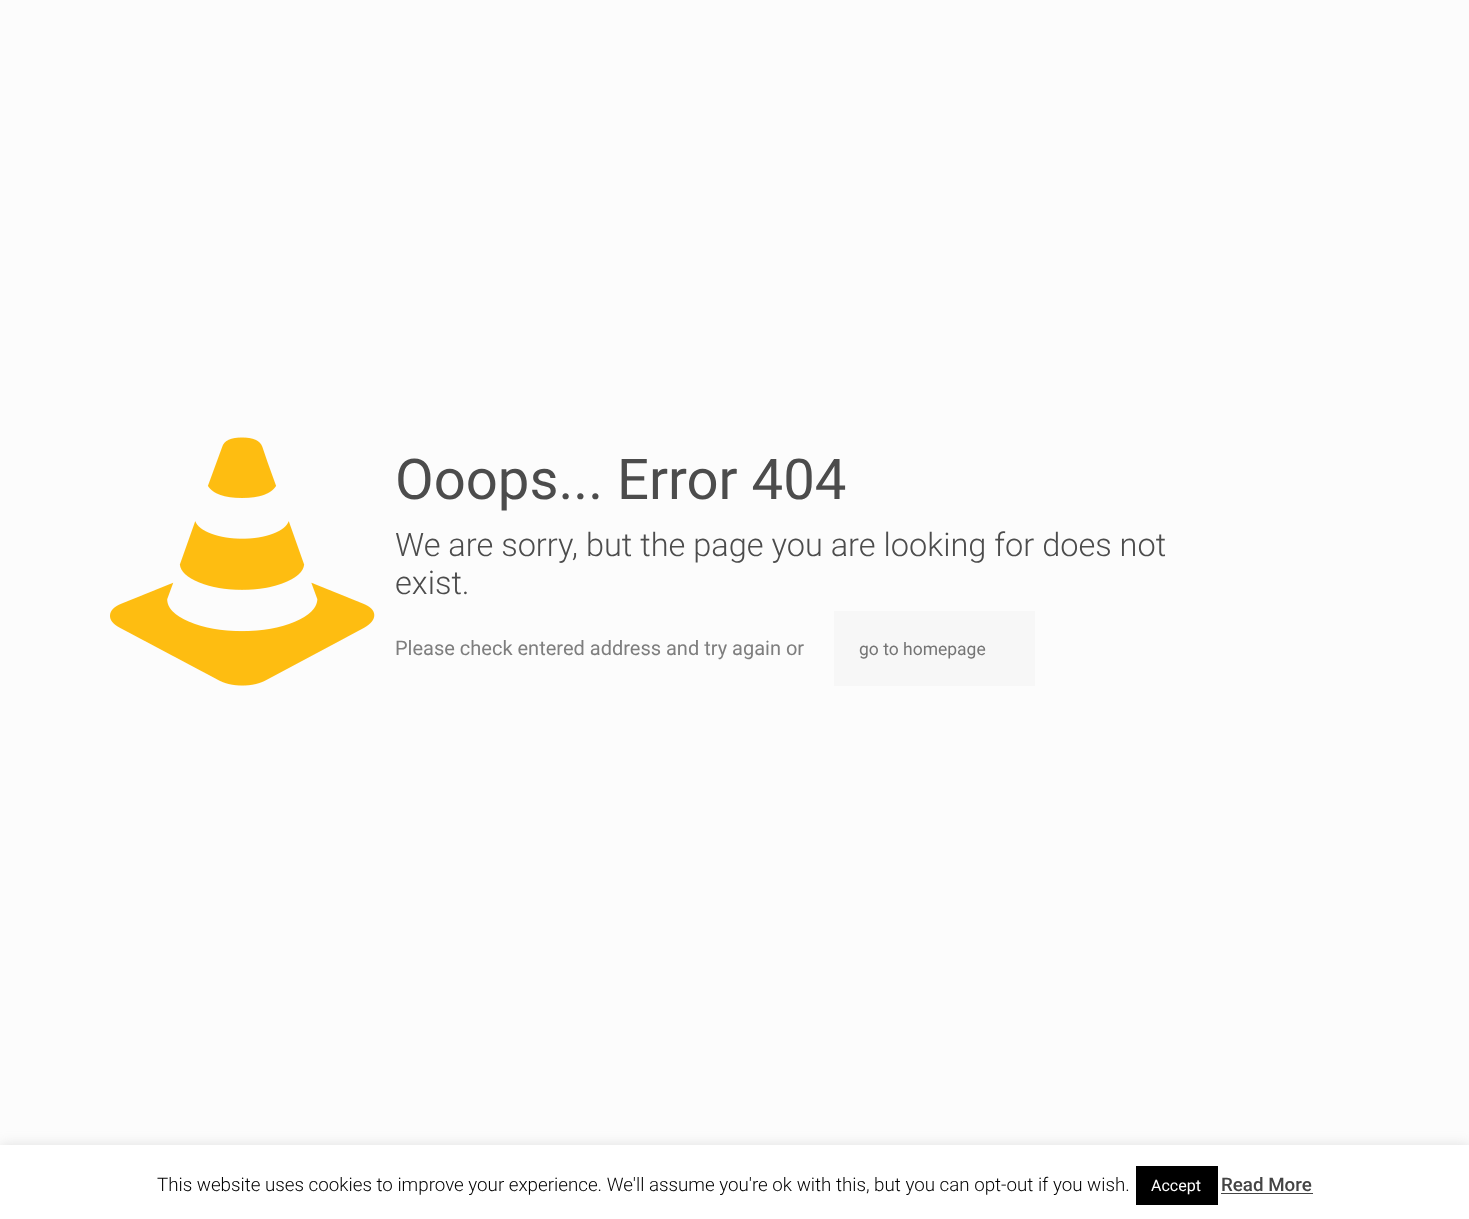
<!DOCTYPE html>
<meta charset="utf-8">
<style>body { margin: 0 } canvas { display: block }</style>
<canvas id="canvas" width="1469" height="1219"></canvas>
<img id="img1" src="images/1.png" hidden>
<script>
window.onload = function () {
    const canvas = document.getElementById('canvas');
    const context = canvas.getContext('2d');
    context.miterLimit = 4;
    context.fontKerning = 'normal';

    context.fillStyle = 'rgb(252, 252, 252)';
    context.fillRect(0, 0, 1469, 1219);
    context.drawImage(document.getElementById('img1'), 110, 437, 265, 249);
    context.fillStyle = 'rgb(247, 247, 247)';
    context.fillRect(834, 611, 201, 75);
    context.fillStyle = 'rgba(172, 171, 171, 0.3)';
    context.filter = 'blur(6px)';
    context.beginPath();
    context.rect(0, 1144, 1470, 75);
    context.fill();
    context.filter = 'none';
    context.fillStyle = 'rgb(255, 255, 255)';
    context.fillRect(0, 1145, 1469, 74);
    context.fillStyle = 'rgb(0, 0, 0)';
    context.fillRect(1136, 1166, 82, 39);
    context.fillStyle = 'rgb(68, 68, 68)';
    context.fillRect(1221, 1193, 92, 1);
    context.font = '56.25px Roboto';
    context.fillStyle = 'rgb(76, 76, 76)';
    context.fillText('Ooops... Error 404', 395, 499);
    context.font = '300 32.5px Roboto';
    context.fillText('We are sorry, but the page you are looking for does not', 395, 556);
    context.fillText('exist.', 395, 594);
    context.font = '20px Roboto';
    context.fillStyle = 'rgb(126, 126, 126)';
    context.fillText('Please check entered address and try again or', 395, 655);
    context.font = '17.5px Roboto';
    context.fillStyle = 'rgb(116, 116, 116)';
    context.fillText('go to homepage', 859, 655);
    context.font = '300 18.75px Roboto';
    context.fillStyle = 'rgb(0, 0, 0)';
    context.fillText('This website uses cookies to improve your experience. We\'ll assume you\'re ok with this, but you can opt-out if you wish.', 157, 1191);
    context.font = '16px Roboto';
    context.fillStyle = 'rgb(255, 255, 255)';
    context.fillText('Accept', 1151, 1191);
    context.font = '500 18.75px Roboto';
    context.fillStyle = 'rgb(68, 68, 68)';
    context.fillText('Read More', 1221, 1191);
};
</script>
